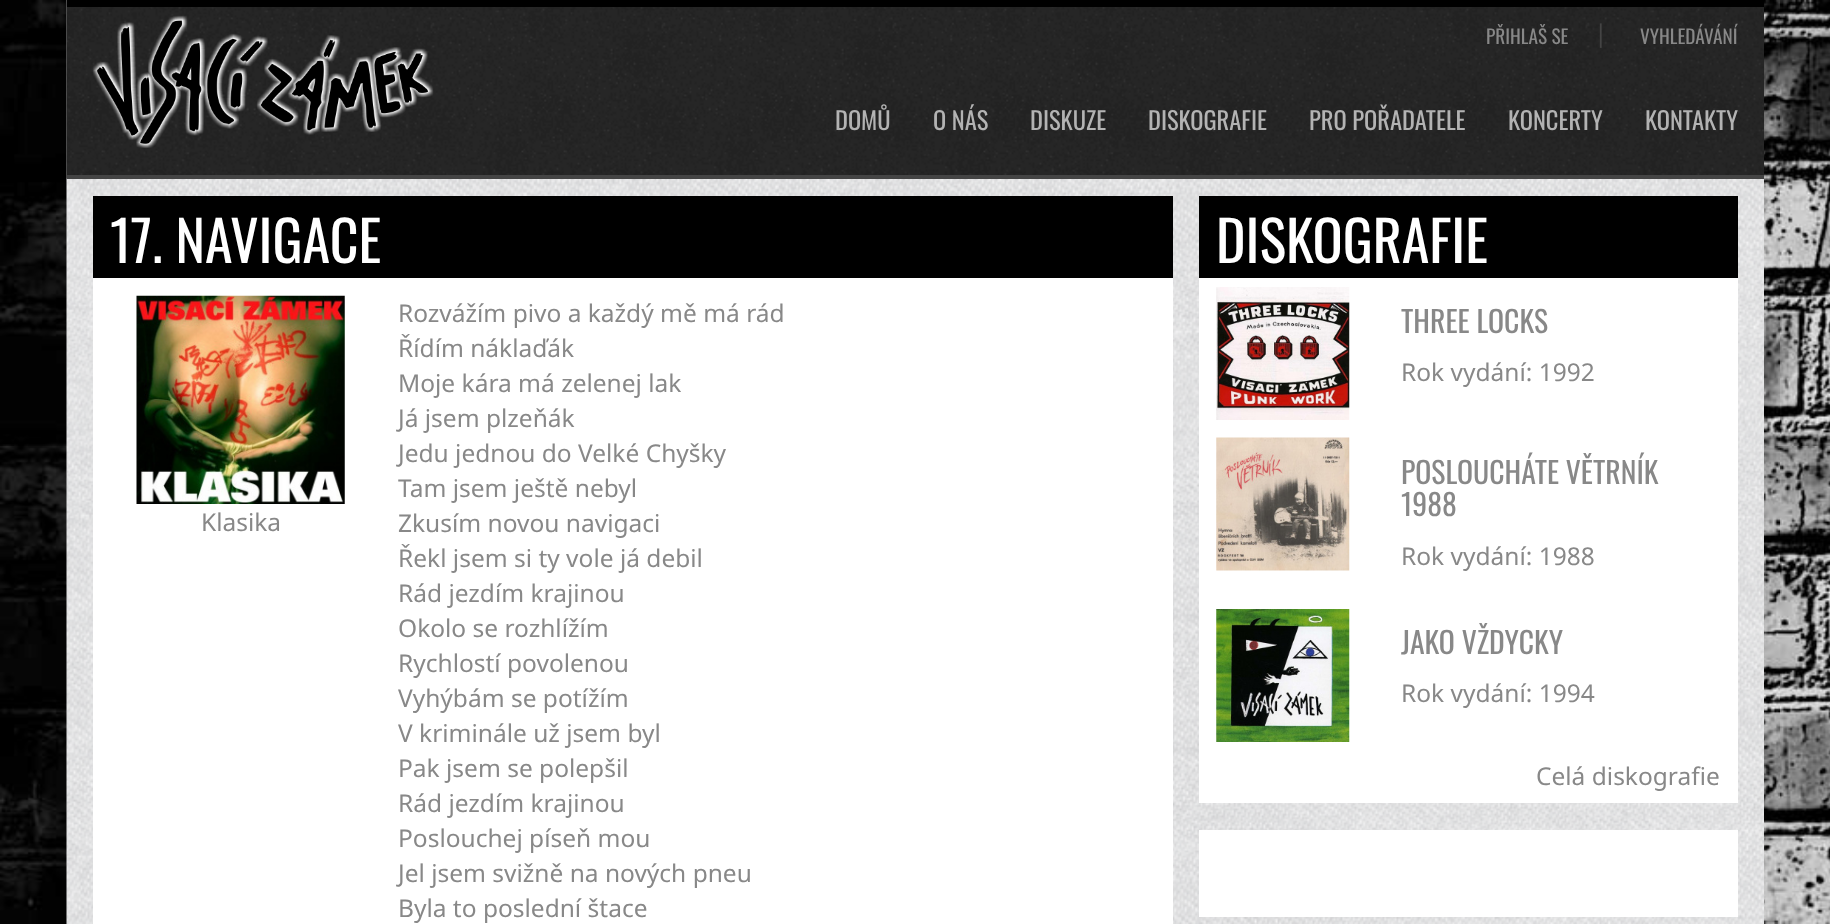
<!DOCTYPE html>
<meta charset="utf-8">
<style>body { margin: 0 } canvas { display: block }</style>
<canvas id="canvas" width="1830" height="924"></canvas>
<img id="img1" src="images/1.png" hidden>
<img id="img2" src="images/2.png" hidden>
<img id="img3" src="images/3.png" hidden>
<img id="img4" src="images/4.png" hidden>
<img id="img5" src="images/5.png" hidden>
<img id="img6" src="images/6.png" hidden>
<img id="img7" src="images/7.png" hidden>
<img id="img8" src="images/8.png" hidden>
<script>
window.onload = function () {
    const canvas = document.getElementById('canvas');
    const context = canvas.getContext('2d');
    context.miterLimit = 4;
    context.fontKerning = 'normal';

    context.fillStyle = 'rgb(255, 255, 255)';
    context.fillRect(0, 0, 1830, 924);
    context.drawImage(document.getElementById('img1'), 0, 0, 1830, 924);
    context.drawImage(document.getElementById('img2'), 66, 0, 1698, 924);
    context.drawImage(document.getElementById('img3'), 66, 0, 1698, 179);
    context.fillStyle = 'rgb(0, 0, 0)';
    context.fillRect(67, 0, 1697, 7);
    context.fillStyle = 'rgb(68, 68, 68)';
    context.fillRect(67, 175, 1697, 4);
    context.drawImage(document.getElementById('img4'), 92, 15, 342, 133);
    context.fillStyle = 'rgb(0, 0, 0)';
    context.fillRect(93, 196, 1080, 82);
    context.fillStyle = 'rgb(255, 255, 255)';
    context.fillRect(93, 278, 1080, 646);
    context.drawImage(document.getElementById('img5'), 136, 295, 209, 209);
    context.fillRect(1199, 278, 539, 525);
    context.fillStyle = 'rgb(0, 0, 0)';
    context.fillRect(1199, 196, 539, 82);
    context.drawImage(document.getElementById('img6'), 1216, 287, 134, 133);
    context.drawImage(document.getElementById('img7'), 1216, 437, 134, 134);
    context.drawImage(document.getElementById('img8'), 1216, 609, 134, 133);
    context.fillStyle = 'rgb(255, 255, 255)';
    context.fillRect(1199, 830, 539, 87);
    context.font = '19.25px Oswald';
    context.fillStyle = 'rgb(136, 136, 136)';
    context.fillText('PŘIHLAŠ SE', 1486, 44);
    context.font = '24.5px Noto Sans';
    context.fillStyle = 'rgb(68, 68, 68)';
    context.fillText('|', 1594, 42);
    context.font = '19.25px Oswald';
    context.fillStyle = 'rgb(136, 136, 136)';
    context.fillText('VYHLEDÁVÁNÍ', 1640, 44);
    context.font = '24.5px Oswald';
    context.fillStyle = 'rgb(179, 179, 179)';
    context.fillText('DOMŮ', 835, 130);
    context.fillText('O NÁS', 933, 130);
    context.fillText('DISKUZE', 1030, 130);
    context.fillText('DISKOGRAFIE', 1148, 130);
    context.fillText('PRO POŘADATELE', 1309, 130);
    context.fillText('KONCERTY', 1508, 130);
    context.fillText('KONTAKTY', 1645, 130);
    context.font = '56px Oswald';
    context.fillStyle = 'rgb(255, 255, 255)';
    context.fillText('17. NAVIGACE', 110, 263);
    context.font = '24.5px Noto Sans';
    context.fillStyle = 'rgb(136, 136, 136)';
    context.fillText('Klasika', 201, 531);
    context.fillText('Rozvážím pivo a každý mě má rád', 398, 322);
    context.fillText('Řídím náklaďák', 398, 357);
    context.fillText('Moje kára má zelenej lak', 398, 392);
    context.fillText('Já jsem plzeňák', 398, 427);
    context.fillText('Jedu jednou do Velké Chyšky', 398, 462);
    context.fillText('Tam jsem ještě nebyl', 398, 497);
    context.fillText('Zkusím novou navigaci', 398, 532);
    context.fillText('Řekl jsem si ty vole já debil', 398, 567);
    context.fillText('Rád jezdím krajinou', 398, 602);
    context.fillText('Okolo se rozhlížím', 398, 637);
    context.fillText('Rychlostí povolenou', 398, 672);
    context.fillText('Vyhýbám se potížím', 398, 707);
    context.fillText('V kriminále už jsem byl', 398, 742);
    context.fillText('Pak jsem se polepšil', 398, 777);
    context.fillText('Rád jezdím krajinou', 398, 812);
    context.fillText('Poslouchej píseň mou', 398, 847);
    context.fillText('Jel jsem svižně na nových pneu', 398, 882);
    context.fillText('Byla to poslední štace', 398, 917);
    context.font = '56px Oswald';
    context.fillStyle = 'rgb(255, 255, 255)';
    context.fillText('DISKOGRAFIE', 1216, 263);
    context.font = '29.75px Oswald';
    context.fillStyle = 'rgb(136, 136, 136)';
    context.fillText('THREE LOCKS', 1401, 333);
    context.font = '24.5px Noto Sans';
    context.fillText('Rok vydání: 1992', 1401, 381);
    context.font = '29.75px Oswald';
    context.fillText('POSLOUCHÁTE VĚTRNÍK', 1401, 484);
    context.fillText('1988', 1401, 516);
    context.font = '24.5px Noto Sans';
    context.fillText('Rok vydání: 1988', 1401, 565);
    context.font = '29.75px Oswald';
    context.fillText('JAKO VŽDYCKY', 1401, 654);
    context.font = '24.5px Noto Sans';
    context.fillText('Rok vydání: 1994', 1401, 702);
    context.fillText('Celá diskografie', 1536, 785);
};
</script>
